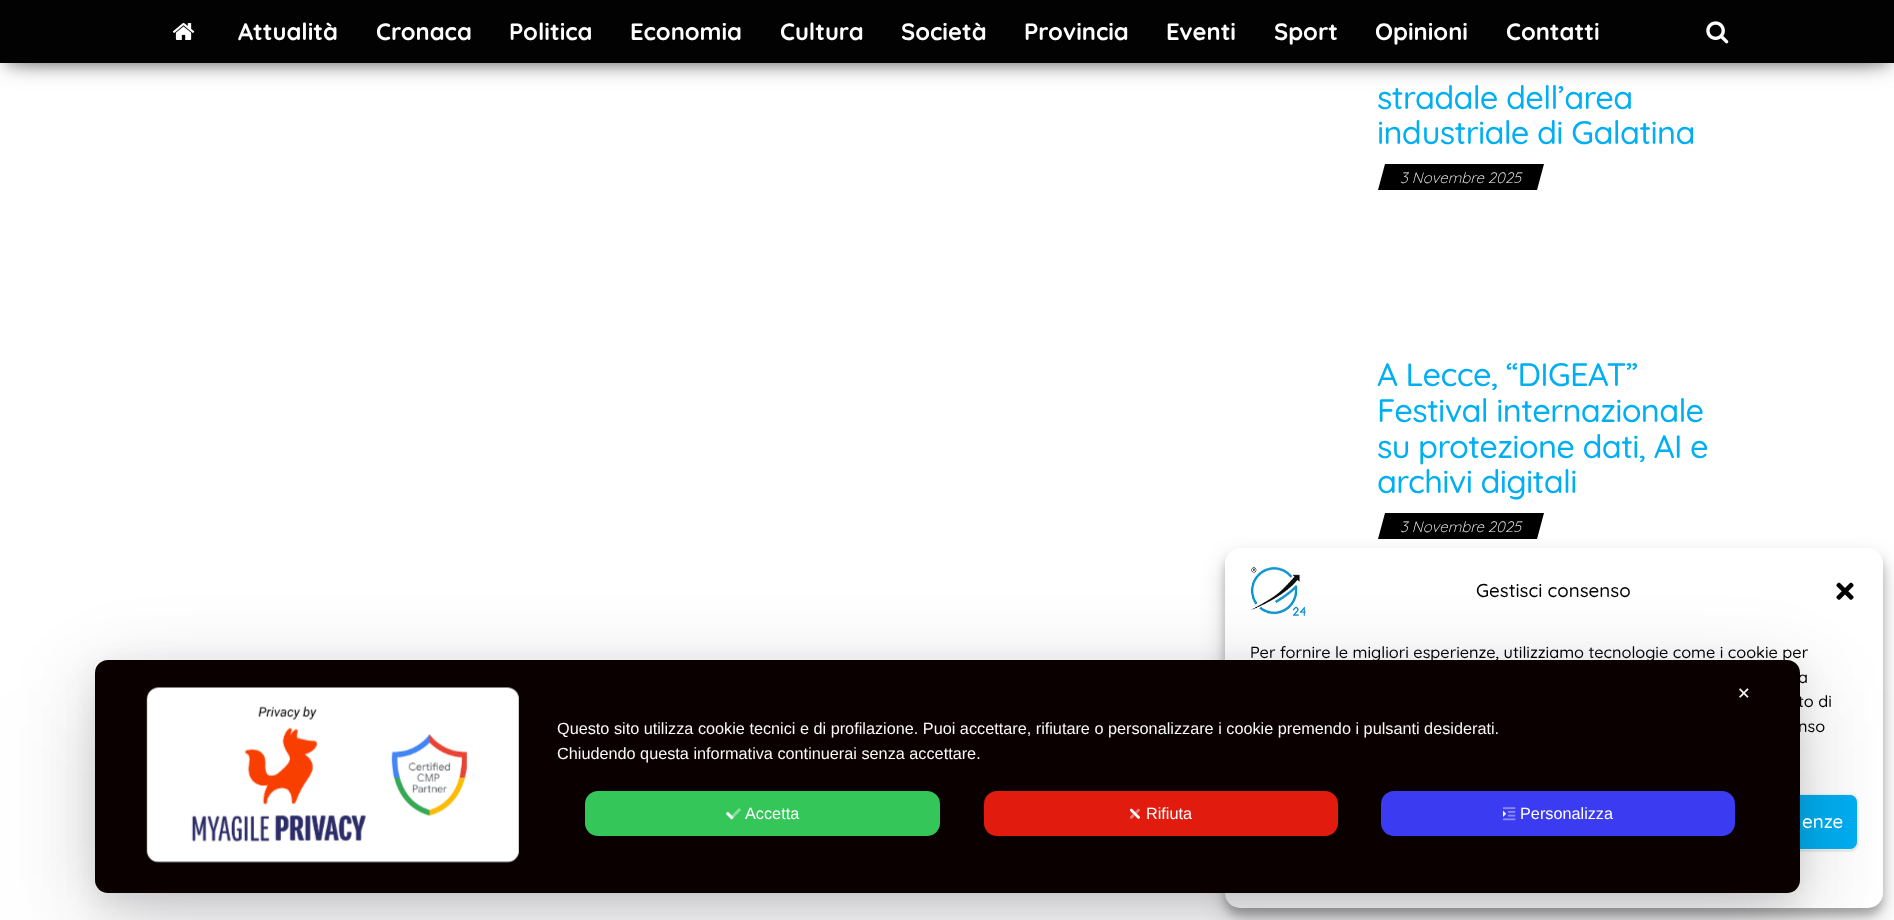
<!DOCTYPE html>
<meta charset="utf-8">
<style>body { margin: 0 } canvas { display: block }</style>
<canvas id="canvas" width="1894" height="920"></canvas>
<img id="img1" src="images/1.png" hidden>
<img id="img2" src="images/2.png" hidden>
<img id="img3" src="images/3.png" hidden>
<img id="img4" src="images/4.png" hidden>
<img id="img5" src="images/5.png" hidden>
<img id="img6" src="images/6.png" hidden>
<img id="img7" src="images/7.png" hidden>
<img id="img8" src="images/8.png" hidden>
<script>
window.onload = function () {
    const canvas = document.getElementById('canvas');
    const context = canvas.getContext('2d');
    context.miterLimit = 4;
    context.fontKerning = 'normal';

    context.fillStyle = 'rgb(255, 255, 255)';
    context.fillRect(0, 0, 1894, 920);
    context.fillStyle = 'rgba(0, 0, 0, 0.2)';
    context.filter = 'blur(6px)';
    context.beginPath();
    context.rect(6, 16, 1883, 50);
    context.fill();
    context.filter = 'none';
    context.fillStyle = 'rgba(0, 0, 0, 0.12)';
    context.filter = 'blur(12.5px)';
    context.beginPath();
    context.rect(0, 4, 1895, 62);
    context.fill();
    context.filter = 'none';
    context.fillStyle = 'rgba(0, 0, 0, 0.42)';
    context.filter = 'blur(12.5px)';
    context.beginPath();
    context.rect(15, 28, 1865, 32);
    context.fill();
    context.filter = 'none';
    context.fillStyle = 'rgb(2, 2, 2)';
    context.fillRect(0, 0, 1894, 63);
    context.drawImage(document.getElementById('img1'), 172, 23, 23, 17);
    context.drawImage(document.getElementById('img2'), 1706, 21, 23, 23);
    context.fillStyle = 'rgb(0, 0, 0)';
    context.beginPath();
    context.moveTo(1385, 164);
    context.lineTo(1544, 164);
    context.lineTo(1537, 190);
    context.lineTo(1378, 190);
    context.closePath();
    context.fill();
    context.beginPath();
    context.moveTo(1385, 513);
    context.lineTo(1544, 513);
    context.lineTo(1537, 539);
    context.lineTo(1378, 539);
    context.closePath();
    context.fill();
    context.fillStyle = 'rgba(0, 0, 0, 0.23)';
    context.filter = 'blur(4px)';
    context.beginPath();
    context.roundRect(1225, 555, 658, 360, 15);
    context.fill();
    context.filter = 'none';
    context.fillStyle = 'rgba(0, 0, 0, 0.19)';
    context.filter = 'blur(12.5px)';
    context.beginPath();
    context.roundRect(1225, 560, 658, 360, 15);
    context.fill();
    context.filter = 'none';
    context.fillStyle = 'rgb(255, 255, 255)';
    context.beginPath();
    context.roundRect(1225, 548, 658, 360, 15);
    context.fill();
    context.drawImage(document.getElementById('img3'), 1250, 566, 56, 50);
    context.drawImage(document.getElementById('img4'), 1836, 582, 18, 18);
    context.fillStyle = 'rgba(0, 0, 0, 0.15)';
    context.filter = 'blur(1px)';
    context.beginPath();
    context.roundRect(1644, 795, 214, 56, 8);
    context.fill();
    context.filter = 'none';
    context.fillStyle = 'rgb(0, 175, 242)';
    context.beginPath();
    context.roundRect(1644.5, 794.5, 213, 55, 7.5);
    context.fill();
    context.strokeStyle = 'rgb(242, 242, 242)';
    context.stroke();
    context.fillStyle = 'rgba(17, 17, 26, 0.1)';
    context.filter = 'blur(50px)';
    context.beginPath();
    context.roundRect(95, 690, 1705, 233, 13);
    context.fill();
    context.filter = 'none';
    context.filter = 'blur(35px)';
    context.beginPath();
    context.roundRect(95, 680, 1705, 233, 13);
    context.fill();
    context.filter = 'none';
    context.filter = 'blur(15px)';
    context.beginPath();
    context.roundRect(95, 670, 1705, 233, 13);
    context.fill();
    context.filter = 'none';
    context.font = 'bold 23.75px Quicksand';
    context.fillStyle = 'rgb(255, 255, 255)';
    context.fillText('Attualità', 238, 40);
    context.fillText('Cronaca', 376, 40);
    context.fillText('Politica', 509, 40);
    context.fillText('Economia', 630, 40);
    context.fillText('Cultura', 780, 40);
    context.fillText('Società', 901, 40);
    context.fillText('Provincia', 1024, 40);
    context.fillText('Eventi', 1166, 40);
    context.fillText('Sport', 1274, 40);
    context.fillText('Opinioni', 1375, 40);
    context.fillText('Contatti', 1506, 40);
    context.letterSpacing = '-0.65px';
    context.font = '500 32.5px Quicksand';
    context.fillStyle = 'rgb(0, 175, 242)';
    context.fillText('stradale dell’area', 1377, 109);
    context.fillText('industriale di Galatina', 1377, 144);
    context.letterSpacing = '0px';
    context.font = 'italic 300 15px Quicksand';
    context.fillStyle = 'rgb(255, 255, 255)';
    context.fillText('3 Novembre 2025', 1400, 183);
    context.letterSpacing = '-0.65px';
    context.font = '500 32.5px Quicksand';
    context.fillStyle = 'rgb(0, 175, 242)';
    context.fillText('A Lecce, “DIGEAT”', 1377, 386);
    context.fillText('Festival internazionale', 1377, 422);
    context.fillText('su protezione dati, AI e', 1377, 458);
    context.fillText('archivi digitali', 1377, 493);
    context.letterSpacing = '0px';
    context.font = 'italic 300 15px Quicksand';
    context.fillStyle = 'rgb(255, 255, 255)';
    context.fillText('3 Novembre 2025', 1400, 532);
    context.font = '500 18.75px Quicksand';
    context.fillStyle = 'rgb(0, 0, 0)';
    context.fillText('Gestisci consenso', 1476, 597);
    context.font = '500 16.25px Quicksand';
    context.fillText('Per fornire le migliori esperienze, utilizziamo tecnologie come i cookie per', 1250, 658);
    context.fillText('a', 1798, 683);
    context.fillText('to di', 1798, 707);
    context.fillText('nso', 1798, 732);
    context.font = '500 18.75px Quicksand';
    context.fillStyle = 'rgb(255, 255, 255)';
    context.fillText('enze', 1802, 828);
    context.fillStyle = 'rgb(10, 0, 0)';
    context.beginPath();
    context.roundRect(95, 660, 1705, 233, 13);
    context.fill();
    context.font = '16.25px DejaVu Sans';
    context.fillStyle = 'rgb(250, 249, 249)';
    context.fillText('✕', 1737, 699);
    context.drawImage(document.getElementById('img5'), 146, 687, 373, 176);
    context.font = '16.25px Liberation Sans';
    context.fillText('Questo sito utilizza cookie tecnici e di profilazione. Puoi accettare, rifiutare o personalizzare i cookie premendo i pulsanti desiderati.', 557, 734);
    context.fillText('Chiudendo questa informativa continuerai senza accettare.', 557, 759);
    context.fillStyle = 'rgb(52, 198, 89)';
    context.beginPath();
    context.roundRect(585, 791, 355, 45, 13);
    context.fill();
    context.drawImage(document.getElementById('img6'), 726, 808, 15, 12);
    context.fillStyle = 'rgb(255, 255, 255)';
    context.fillText('Accetta', 745, 819);
    context.fillStyle = 'rgb(225, 28, 14)';
    context.beginPath();
    context.roundRect(984, 791, 354, 45, 13);
    context.fill();
    context.drawImage(document.getElementById('img7'), 1130, 808, 10, 11);
    context.fillStyle = 'rgb(255, 255, 255)';
    context.fillText('Rifiuta', 1146, 819);
    context.fillStyle = 'rgb(59, 59, 241)';
    context.beginPath();
    context.roundRect(1381, 791, 354, 45, 13);
    context.fill();
    context.drawImage(document.getElementById('img8'), 1503, 807, 13, 14);
    context.fillStyle = 'rgb(255, 255, 255)';
    context.fillText('Personalizza', 1520, 819);
};
</script>
